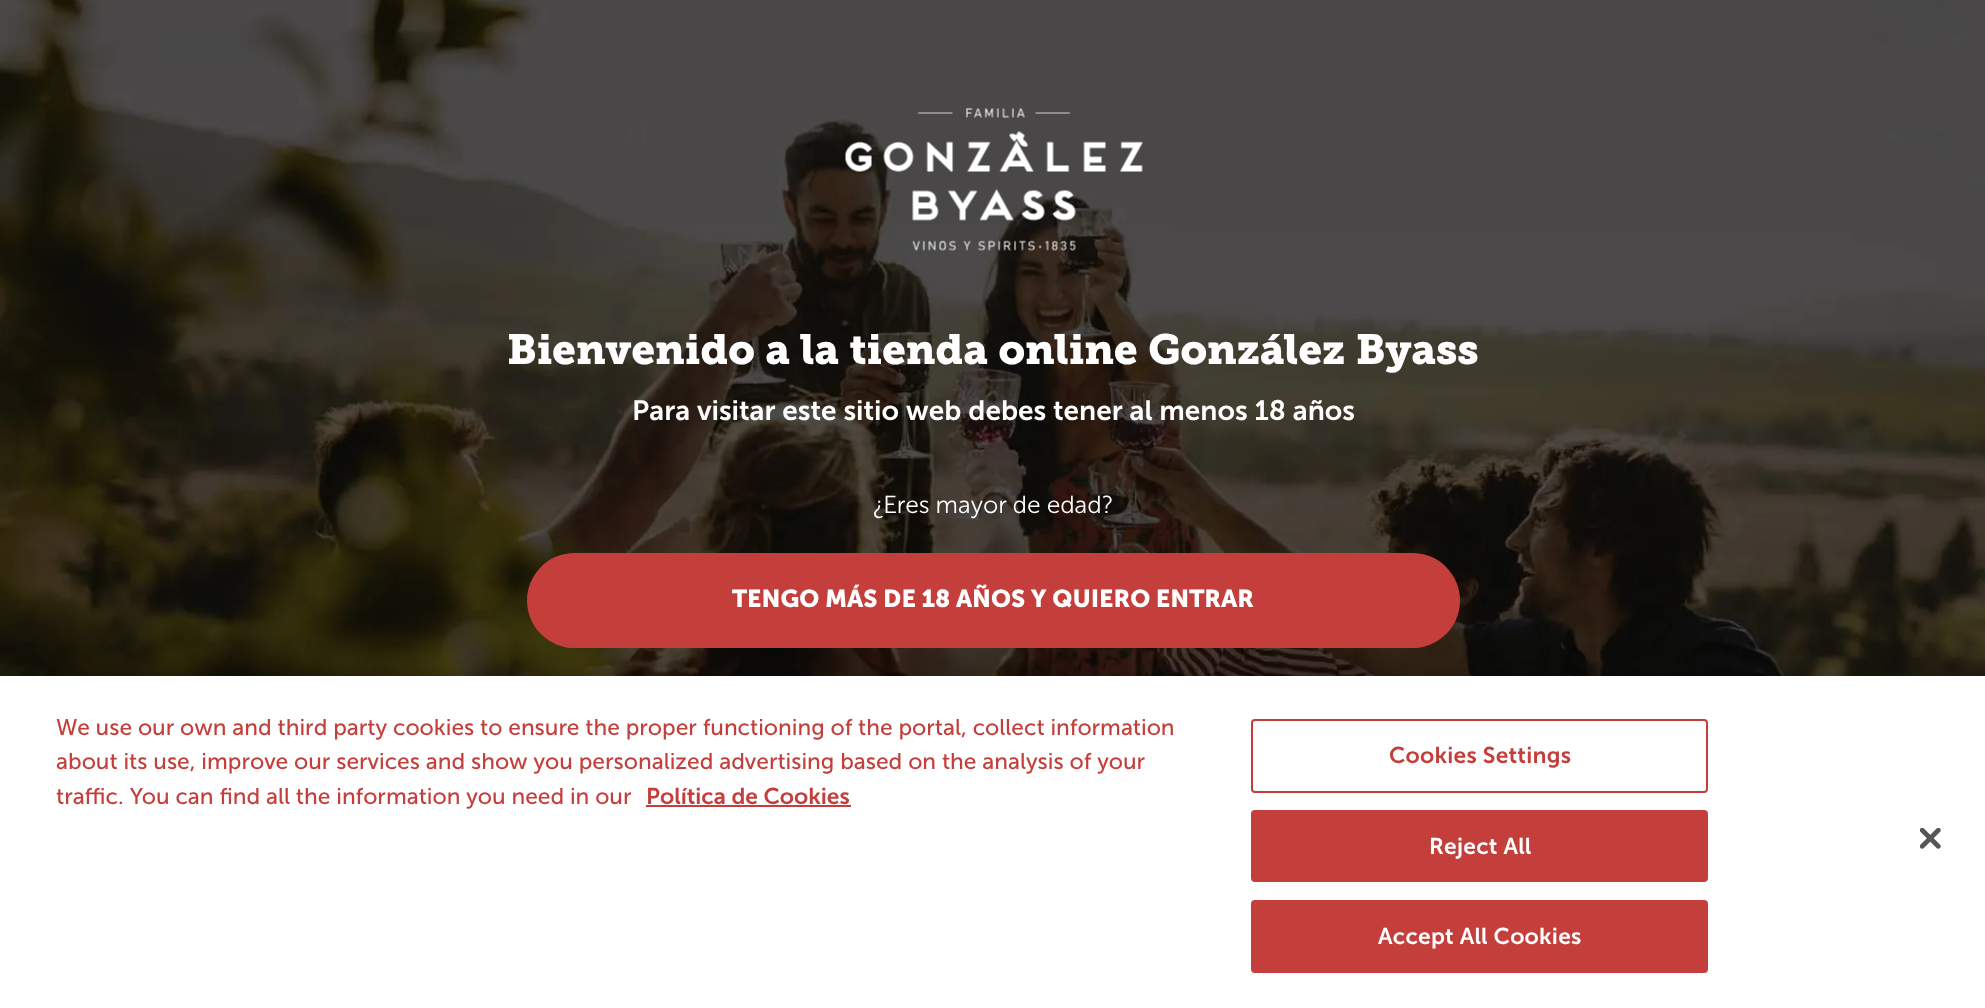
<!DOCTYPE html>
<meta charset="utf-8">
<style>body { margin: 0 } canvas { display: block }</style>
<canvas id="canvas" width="1985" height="1008"></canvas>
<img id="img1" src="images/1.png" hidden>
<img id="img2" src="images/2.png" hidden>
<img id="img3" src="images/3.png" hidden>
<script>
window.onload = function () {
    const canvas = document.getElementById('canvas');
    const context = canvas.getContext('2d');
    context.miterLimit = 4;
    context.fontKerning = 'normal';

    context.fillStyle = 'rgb(255, 255, 255)';
    context.fillRect(0, 0, 1985, 1008);
    context.drawImage(document.getElementById('img1'), 0, 0, 1985, 676);
    context.drawImage(document.getElementById('img2'), 845, 108, 298, 143);
    context.fillStyle = 'rgb(196, 63, 59)';
    context.beginPath();
    context.roundRect(527, 553, 933, 95, 47.5);
    context.fill();
    context.fillStyle = 'rgba(0, 0, 0, 0.2)';
    context.filter = 'blur(16px)';
    context.beginPath();
    context.rect(0, 676, 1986, 332);
    context.fill();
    context.filter = 'none';
    context.fillStyle = 'rgb(255, 255, 255)';
    context.fillRect(0, 676, 1985, 332);
    context.fillStyle = 'rgb(196, 63, 59)';
    context.fillRect(646, 805, 205, 2);
    context.beginPath();
    context.roundRect(1252, 720, 455, 72, 3);
    context.strokeStyle = 'rgb(196, 63, 59)';
    context.lineWidth = 2;
    context.stroke();
    context.beginPath();
    context.roundRect(1252, 811, 455, 70, 3);
    context.fill();
    context.stroke();
    context.beginPath();
    context.roundRect(1252, 901, 455, 71, 3);
    context.fill();
    context.stroke();
    context.drawImage(document.getElementById('img3'), 1920, 828, 21, 21);
    context.font = '900 42px Museo Slab';
    context.fillStyle = 'rgb(255, 255, 255)';
    context.fillText('Bienvenido a la tienda online González Byass', 507, 364);
    context.font = '600 28px Museo Sans';
    context.fillText('Para visitar este sitio web debes tener al menos 18 años', 632, 420);
    context.font = '24.5px "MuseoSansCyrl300"';
    context.fillText('¿Eres mayor de edad?', 873, 513);
    context.font = 'bold 24.5px Museo Sans';
    context.fillText('TENGO MÁS DE 18 AÑOS Y QUIERO ENTRAR', 732, 607);
    context.font = '22.75px Museo Sans';
    context.fillStyle = 'rgb(196, 63, 59)';
    context.fillText('We use our own and third party cookies to ensure the proper functioning of the portal, collect information', 56, 735);
    context.fillText('about its use, improve our services and show you personalized advertising based on the analysis of your', 56, 769);
    context.fillText('traffic. You can find all the information you need in our', 56, 804);
    context.font = '600 22.75px Museo Sans';
    context.fillText('Política de Cookies', 646, 804);
    context.letterSpacing = '0.25px';
    context.fillText('Cookies Settings', 1389, 763);
    context.fillStyle = 'rgb(255, 255, 255)';
    context.fillText('Reject All', 1429, 854);
    context.fillText('Accept All Cookies', 1378, 944);
};
</script>
